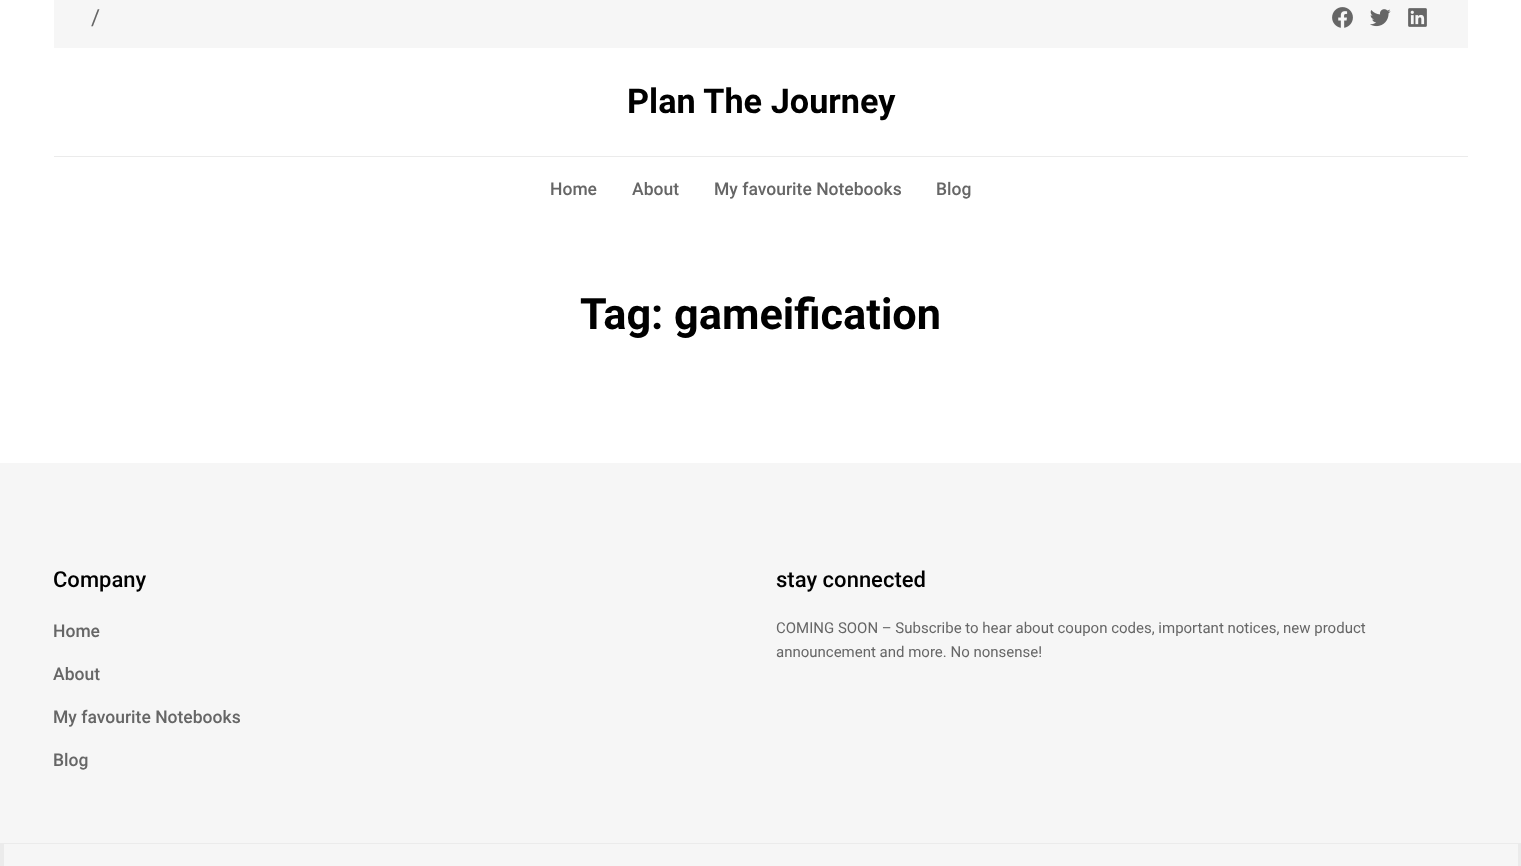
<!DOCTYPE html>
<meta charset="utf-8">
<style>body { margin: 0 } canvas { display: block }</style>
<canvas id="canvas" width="1521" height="866"></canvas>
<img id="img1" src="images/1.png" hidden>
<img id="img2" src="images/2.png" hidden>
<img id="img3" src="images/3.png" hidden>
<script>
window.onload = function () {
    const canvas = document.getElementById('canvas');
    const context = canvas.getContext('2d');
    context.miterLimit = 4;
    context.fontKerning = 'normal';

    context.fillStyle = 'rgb(255, 255, 255)';
    context.fillRect(0, 0, 1521, 866);
    context.fillStyle = 'rgb(246, 246, 246)';
    context.fillRect(54, 0, 1414, 48);
    context.drawImage(document.getElementById('img1'), 1332, 7, 21, 21);
    context.drawImage(document.getElementById('img2'), 1370, 9, 21, 18);
    context.drawImage(document.getElementById('img3'), 1408, 8, 19, 19);
    context.fillStyle = 'rgb(235, 235, 235)';
    context.fillRect(54, 156, 1414, 1);
    context.fillStyle = 'rgb(246, 246, 246)';
    context.fillRect(0, 463, 1521, 380);
    context.fillRect(4, 844, 1514, 22);
    context.fillStyle = 'rgb(235, 235, 235)';
    context.fillRect(0, 843, 1521, 1);
    context.fillRect(1518, 843, 3, 23);
    context.fillRect(0, 843, 4, 23);
    context.font = '22px Roboto';
    context.fillStyle = 'rgb(102, 102, 102)';
    context.fillText('/', 91, 25);
    context.font = 'bold 34.25px Roboto';
    context.fillStyle = 'rgb(0, 0, 0)';
    context.fillText('Plan The Journey', 627, 113);
    context.font = '500 17.5px Roboto';
    context.fillStyle = 'rgb(102, 102, 102)';
    context.fillText('Home', 550, 195);
    context.fillText('About', 632, 195);
    context.fillText('My favourite Notebooks', 714, 195);
    context.fillText('Blog', 936, 195);
    context.font = 'bold 43.25px Roboto';
    context.fillStyle = 'rgb(0, 0, 0)';
    context.fillText('Tag: gameification', 580, 329);
    context.font = '500 22px Roboto';
    context.fillText('Company', 53, 587);
    context.font = '500 17.5px Roboto';
    context.fillStyle = 'rgb(102, 102, 102)';
    context.fillText('Home', 53, 637);
    context.fillText('About', 53, 680);
    context.fillText('My favourite Notebooks', 53, 723);
    context.fillText('Blog', 53, 766);
    context.font = '500 22px Roboto';
    context.fillStyle = 'rgb(0, 0, 0)';
    context.fillText('stay connected', 776, 587);
    context.font = '15px Roboto';
    context.fillStyle = 'rgb(102, 102, 102)';
    context.fillText('COMING SOON – Subscribe to hear about coupon codes, important notices, new product', 776, 633);
    context.fillText('announcement and more. No nonsense!', 776, 657);
};
</script>
